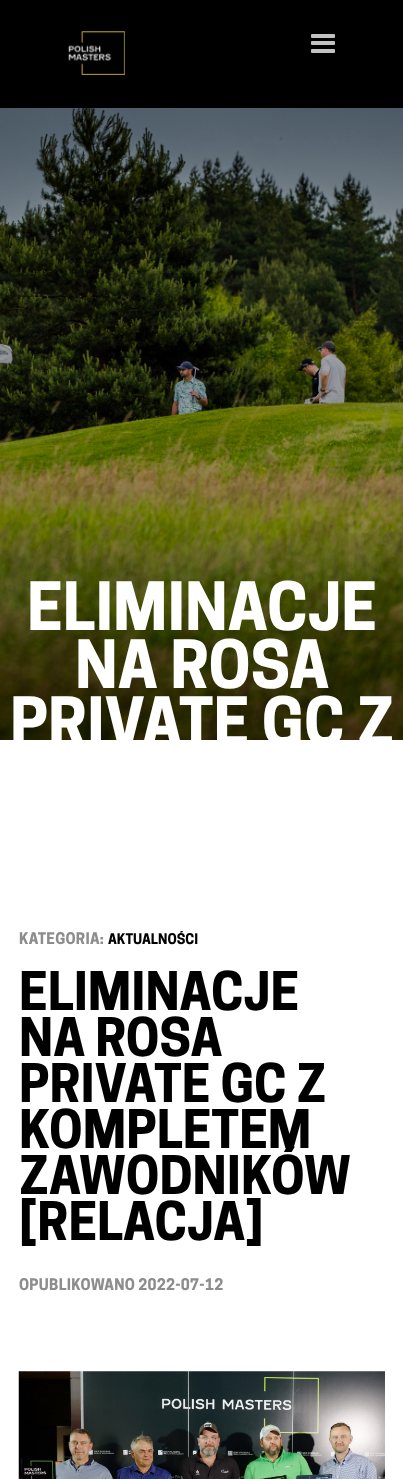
<!DOCTYPE html>
<meta charset="utf-8">
<style>body { margin: 0 } canvas { display: block }</style>
<canvas id="canvas" width="403" height="1479"></canvas>
<img id="img1" src="images/1.png" hidden>
<img id="img2" src="images/2.png" hidden>
<img id="img3" src="images/3.png" hidden>
<script>
window.onload = function () {
    const canvas = document.getElementById('canvas');
    const context = canvas.getContext('2d');
    context.miterLimit = 4;
    context.fontKerning = 'normal';

    context.fillStyle = 'rgb(255, 255, 255)';
    context.fillRect(0, 0, 403, 1479);
    context.fillStyle = 'rgb(0, 0, 0)';
    context.fillRect(0, 0, 403, 108);
    context.drawImage(document.getElementById('img1'), 68, 31, 57, 44);
    context.fillStyle = 'rgb(194, 194, 194)';
    context.beginPath();
    context.roundRect(311, 34, 24, 4, 1);
    context.fill();
    context.beginPath();
    context.roundRect(311, 41, 24, 4, 1);
    context.fill();
    context.beginPath();
    context.roundRect(311, 49, 24, 4, 1);
    context.fill();
    context.drawImage(document.getElementById('img2'), 0, 108, 403, 632);
    context.drawImage(document.getElementById('img3'), 18, 1371, 367, 108);
    context.font = 'bold 62.5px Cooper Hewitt';
    context.fillStyle = 'rgb(255, 255, 255)';
    context.fillText('ELIMINACJE', 27, 630);
    context.fillText('NA ROSA', 75, 688);
    context.save();
    context.beginPath();
    context.rect(0, 0, 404, 740);
    context.clip();
    context.fillText('PRIVATE GC Z', 10, 745);
    context.restore();
    context.letterSpacing = '0.25px';
    context.font = 'bold 15px Cooper Hewitt';
    context.fillStyle = 'rgb(141, 141, 141)';
    context.fillText('KATEGORIA:', 19, 944);
    context.letterSpacing = '0px';
    context.font = 'bold 13.75px Cooper Hewitt';
    context.fillStyle = 'rgb(0, 0, 0)';
    context.fillText('AKTUALNOŚCI', 108, 944);
    context.font = 'bold 50px Cooper Hewitt';
    context.fillText('ELIMINACJE', 19, 1010);
    context.fillText('NA ROSA', 19, 1056);
    context.fillText('PRIVATE GC Z', 19, 1102);
    context.fillText('KOMPLETEM', 19, 1148);
    context.fillText('ZAWODNIKÓW', 19, 1194);
    context.fillText('[RELACJA]', 19, 1240);
    context.letterSpacing = '0.25px';
    context.font = 'bold 15px Cooper Hewitt';
    context.fillStyle = 'rgb(141, 141, 141)';
    context.fillText('OPUBLIKOWANO 2022-07-12', 19, 1290);
};
</script>
